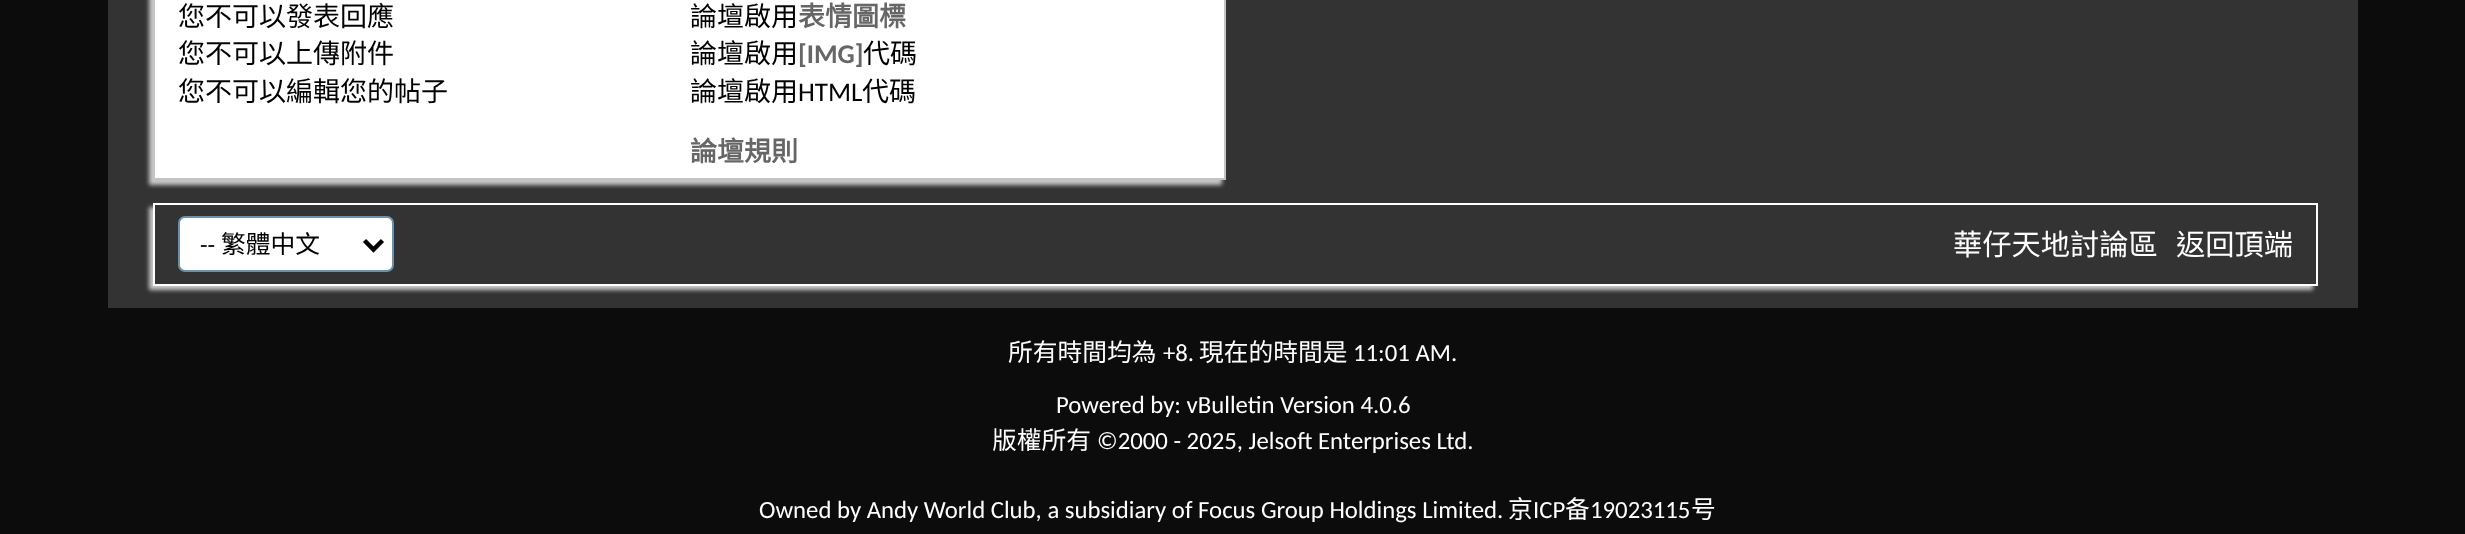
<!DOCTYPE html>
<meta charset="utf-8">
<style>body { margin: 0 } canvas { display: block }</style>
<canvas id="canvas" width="2465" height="534"></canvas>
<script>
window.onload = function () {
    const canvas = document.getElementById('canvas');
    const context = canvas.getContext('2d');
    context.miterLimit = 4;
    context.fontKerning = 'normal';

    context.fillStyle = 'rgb(12, 12, 12)';
    context.fillRect(0, 0, 2465, 534);
    context.fillStyle = 'rgb(51, 51, 51)';
    context.fillRect(108, 0, 2250, 308);
    context.fillStyle = 'rgb(200, 200, 200)';
    context.filter = 'blur(2px)';
    context.beginPath();
    context.rect(149, -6, 1073, 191);
    context.fill();
    context.filter = 'none';
    context.fillStyle = 'rgb(255, 255, 255)';
    context.fillRect(155, 0, 1069, 178);
    context.fillStyle = 'rgb(196, 196, 196)';
    context.fillRect(1224, 0, 2, 180);
    context.fillRect(153, 178, 1073, 2);
    context.fillRect(154, 0, 1, 180);
    context.fillStyle = 'rgb(200, 200, 200)';
    context.filter = 'blur(2px)';
    context.beginPath();
    context.rect(149, 207, 2164, 83);
    context.fill();
    context.filter = 'none';
    context.fillStyle = 'rgb(51, 51, 51)';
    context.beginPath();
    context.rect(154, 204, 2163, 81);
    context.fill();
    context.strokeStyle = 'rgb(255, 255, 255)';
    context.lineWidth = 2;
    context.stroke();
    context.fillStyle = 'rgb(255, 255, 255)';
    context.beginPath();
    context.roundRect(179, 217, 214, 54, 6);
    context.fill();
    context.strokeStyle = 'rgb(107, 145, 171)';
    context.stroke();
    context.beginPath();
    context.moveTo(364.5, 240.5);
    context.lineTo(373.5, 249.5);
    context.lineTo(382.5, 240.5);
    context.strokeStyle = 'rgb(0, 0, 0)';
    context.lineWidth = 4.5;
    context.stroke();
    context.font = '27px Noto Sans CJK TC';
    context.fillStyle = 'rgb(0, 0, 0)';
    context.fillText('您不可以發表回應', 178, 26);
    context.fillText('您不可以上傳附件', 178, 63);
    context.fillText('您不可以編輯您的帖子', 178, 101);
    context.fillText('論壇啟用', 690, 26);
    context.font = 'bold 27px Noto Sans CJK TC';
    context.fillStyle = 'rgb(102, 102, 102)';
    context.fillText('表情圖標', 798, 26);
    context.font = '27px Noto Sans CJK TC';
    context.fillStyle = 'rgb(0, 0, 0)';
    context.fillText('論壇啟用', 690, 63);
    context.font = 'bold 27px Carlito';
    context.fillStyle = 'rgb(102, 102, 102)';
    context.fillText('[IMG]', 798, 63);
    context.font = '27px Noto Sans CJK TC';
    context.fillStyle = 'rgb(0, 0, 0)';
    context.fillText('代碼', 863, 63);
    context.fillText('論壇啟用', 690, 101);
    context.font = '27px Carlito';
    context.fillText('HTML', 798, 101);
    context.font = '27px Noto Sans CJK TC';
    context.fillText('代碼', 862, 101);
    context.font = 'bold 27px Noto Sans CJK TC';
    context.fillStyle = 'rgb(102, 102, 102)';
    context.fillText('論壇規則', 690, 161);
    context.font = '24.75px Carlito';
    context.fillStyle = 'rgb(0, 0, 0)';
    context.fillText('--', 200, 253);
    context.font = '24.75px Noto Sans CJK TC';
    context.fillText('繁體中文', 221, 253);
    context.font = '29.25px Noto Sans CJK TC';
    context.fillStyle = 'rgb(255, 255, 255)';
    context.fillText('華仔天地討論區', 1953, 255);
    context.fillText('返回頂端', 2176, 255);
    context.font = '24.75px Noto Sans CJK TC';
    context.fillText('所有時間均為', 1008, 361);
    context.font = '24.75px Carlito';
    context.fillText('+8.', 1163, 361);
    context.font = '24.75px Noto Sans CJK TC';
    context.fillText('現在的時間是', 1199, 361);
    context.font = '24.75px Carlito';
    context.fillText('11:01 AM.', 1353, 361);
    context.fillText('Powered by: vBulletin Version 4.0.6', 1056, 413);
    context.font = '24.75px Noto Sans CJK TC';
    context.fillText('版權所有', 992, 449);
    context.font = '24.75px Carlito';
    context.fillText('©2000 - 2025, Jelsoft Enterprises Ltd.', 1097, 449);
    context.fillText('Owned by Andy World Club, a subsidiary of Focus Group Holdings Limited.', 759, 518);
    context.font = '24.75px Noto Sans CJK TC';
    context.fillText('京', 1508, 518);
    context.font = '24.75px Carlito';
    context.fillText('ICP', 1533, 518);
    context.font = '24.75px Noto Sans CJK TC';
    context.fillText('备', 1565, 518);
    context.font = '24.75px Carlito';
    context.fillText('19023115', 1590, 518);
    context.font = '24.75px Noto Sans CJK TC';
    context.fillText('号', 1691, 518);
};
</script>
